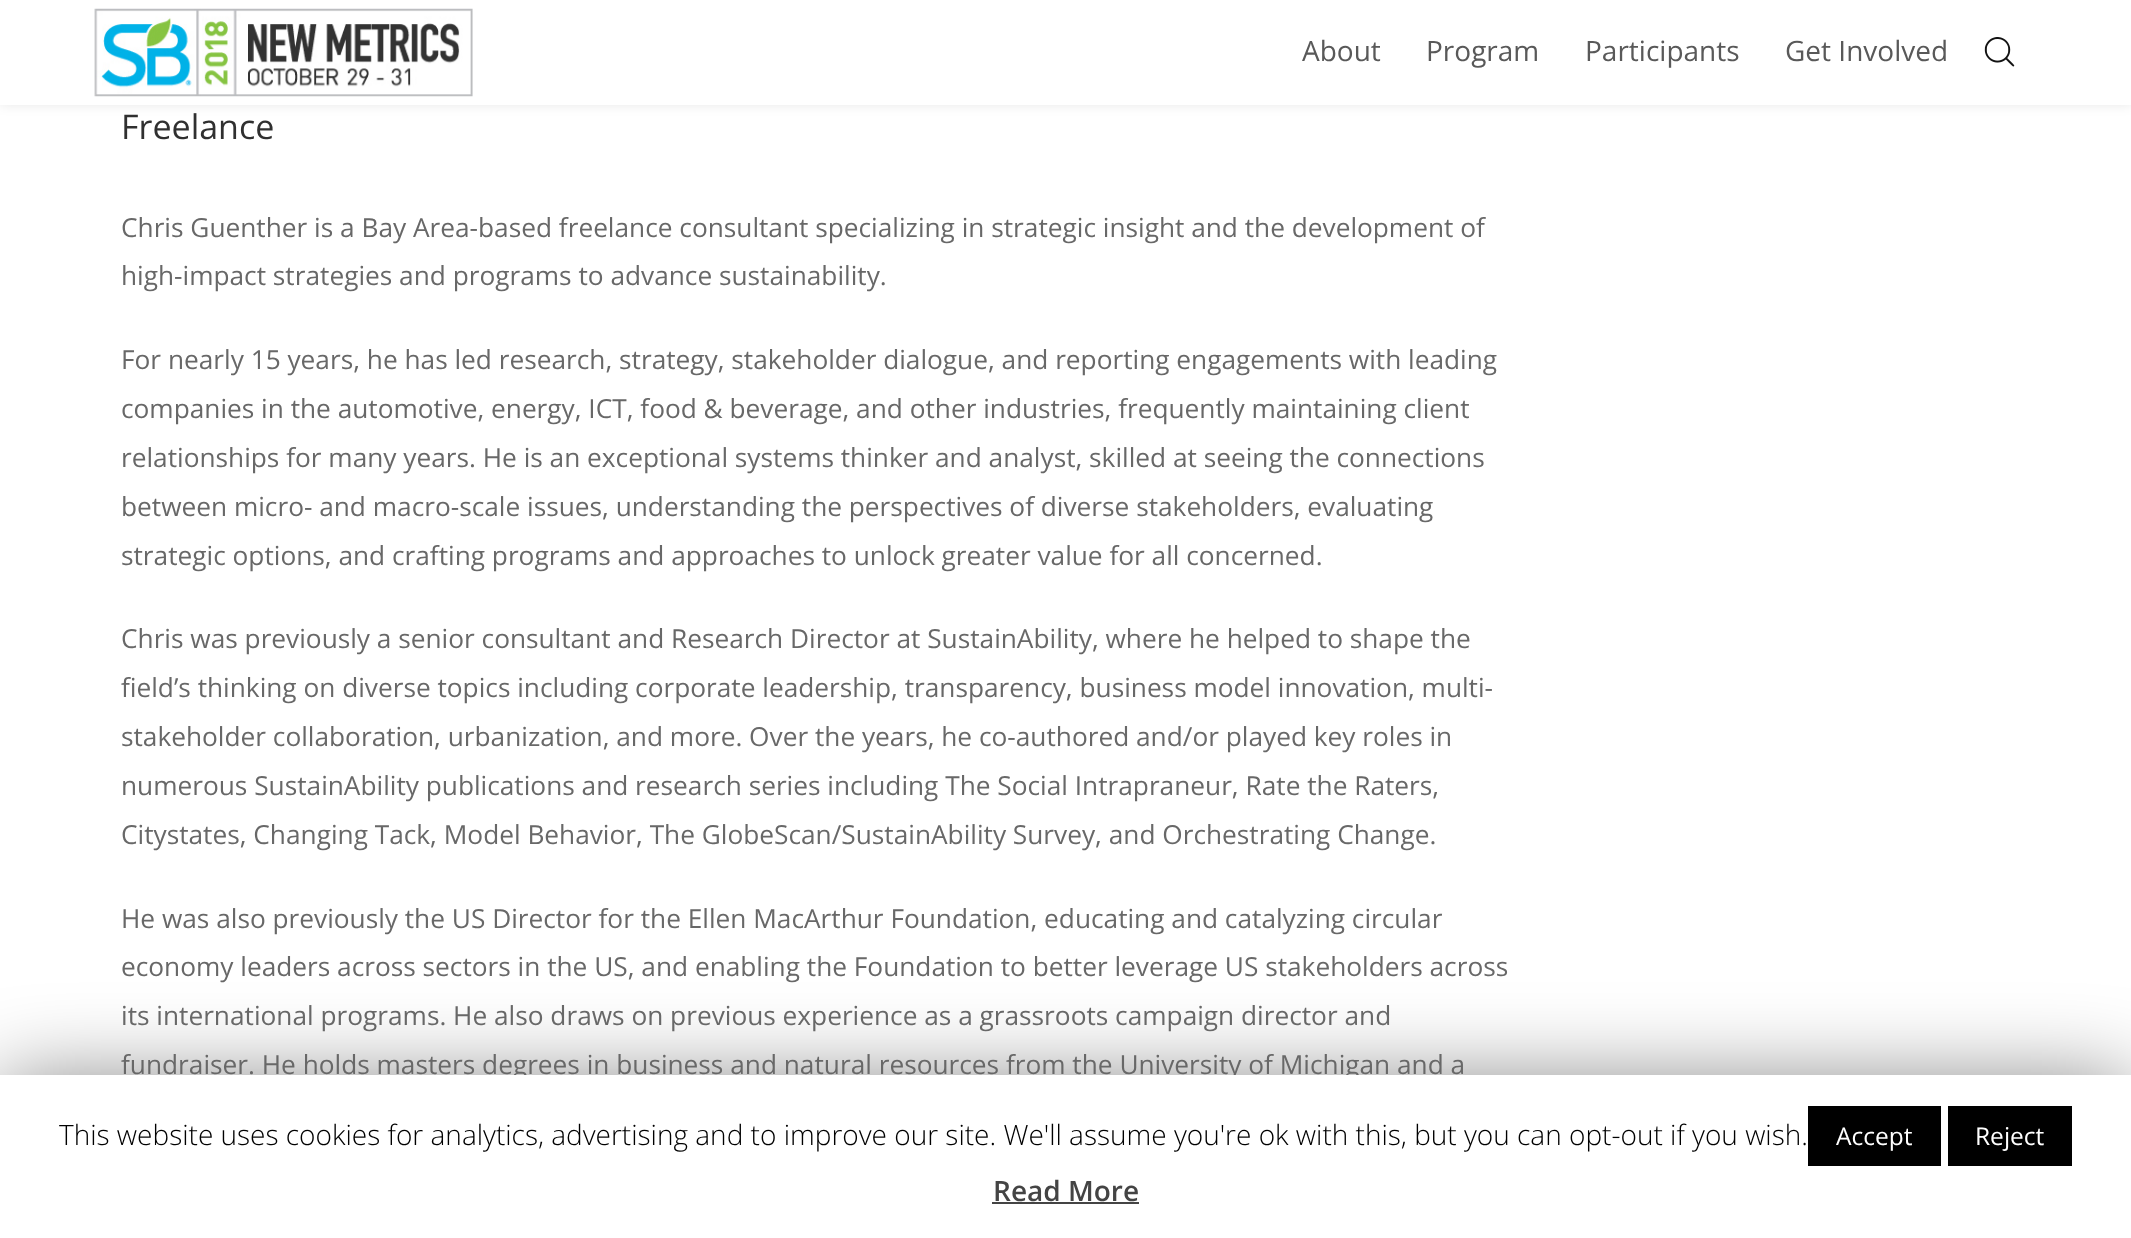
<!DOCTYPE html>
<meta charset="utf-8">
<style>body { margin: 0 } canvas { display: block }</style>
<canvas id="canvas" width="2131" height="1238"></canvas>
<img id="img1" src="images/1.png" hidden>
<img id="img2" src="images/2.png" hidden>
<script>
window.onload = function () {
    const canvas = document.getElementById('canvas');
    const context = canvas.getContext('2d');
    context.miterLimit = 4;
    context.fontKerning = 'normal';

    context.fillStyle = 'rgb(255, 255, 255)';
    context.fillRect(0, 0, 2131, 1238);
    context.fillStyle = 'rgba(0, 0, 0, 0.09)';
    context.filter = 'blur(6px)';
    context.beginPath();
    context.rect(0, 0, 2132, 105);
    context.fill();
    context.filter = 'none';
    context.fillStyle = 'rgb(255, 255, 255)';
    context.fillRect(0, 0, 2131, 105);
    context.drawImage(document.getElementById('img1'), 94, 8, 379, 89);
    context.drawImage(document.getElementById('img2'), 1984, 37, 31, 30);
    context.fillStyle = 'rgba(0, 0, 0, 0.5)';
    context.filter = 'blur(44px)';
    context.beginPath();
    context.rect(0, 1083, 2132, 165);
    context.fill();
    context.filter = 'none';
    context.font = '28px Open Sans';
    context.fillStyle = 'rgb(89, 89, 89)';
    context.fillText('About', 1302, 61);
    context.fillText('Program', 1426, 61);
    context.fillText('Participants', 1585, 61);
    context.fillText('Get Involved', 1785, 61);
    context.font = '34px Open Sans';
    context.fillStyle = 'rgb(48, 48, 48)';
    context.fillText('Freelance', 121, 139);
    context.font = '26.25px Open Sans';
    context.fillStyle = 'rgb(104, 104, 104)';
    context.fillText('Chris Guenther is a Bay Area-based freelance consultant specializing in strategic insight and the development of', 121, 237);
    context.fillText('high-impact strategies and programs to advance sustainability.', 121, 285);
    context.fillText('For nearly 15 years, he has led research, strategy, stakeholder dialogue, and reporting engagements with leading', 121, 369);
    context.fillText('companies in the automotive, energy, ICT, food & beverage, and other industries, frequently maintaining client', 121, 418);
    context.fillText('relationships for many years. He is an exceptional systems thinker and analyst, skilled at seeing the connections', 121, 467);
    context.fillText('between micro- and macro-scale issues, understanding the perspectives of diverse stakeholders, evaluating', 121, 516);
    context.fillText('strategic options, and crafting programs and approaches to unlock greater value for all concerned.', 121, 565);
    context.fillText('Chris was previously a senior consultant and Research Director at SustainAbility, where he helped to shape the', 121, 648);
    context.fillText('field’s thinking on diverse topics including corporate leadership, transparency, business model innovation, multi-', 121, 697);
    context.fillText('stakeholder collaboration, urbanization, and more. Over the years, he co-authored and/or played key roles in', 121, 746);
    context.fillText('numerous SustainAbility publications and research series including The Social Intrapraneur, Rate the Raters,', 121, 795);
    context.fillText('Citystates, Changing Tack, Model Behavior, The GlobeScan/SustainAbility Survey, and Orchestrating Change.', 121, 844);
    context.fillText('He was also previously the US Director for the Ellen MacArthur Foundation, educating and catalyzing circular', 121, 928);
    context.fillText('economy leaders across sectors in the US, and enabling the Foundation to better leverage US stakeholders across', 121, 976);
    context.fillText('its international programs. He also draws on previous experience as a grassroots campaign director and', 121, 1025);
    context.fillText('fundraiser. He holds masters degrees in business and natural resources from the University of Michigan and a', 121, 1074);
    context.fillStyle = 'rgb(255, 255, 255)';
    context.fillRect(0, 1075, 2131, 163);
    context.font = '300 28px Open Sans';
    context.fillStyle = 'rgb(0, 0, 0)';
    context.fillText('This website uses cookies for analytics, advertising and to improve our site. We\'ll assume you\'re ok with this, but you can opt-out if you wish.', 59, 1145);
    context.fillRect(1808, 1106, 133, 60);
    context.font = '24.5px Open Sans';
    context.fillStyle = 'rgb(255, 255, 255)';
    context.fillText('Accept', 1836, 1145);
    context.fillStyle = 'rgb(0, 0, 0)';
    context.fillRect(1948, 1106, 124, 60);
    context.fillStyle = 'rgb(255, 255, 255)';
    context.fillText('Reject', 1975, 1145);
    context.font = '600 28px Open Sans';
    context.fillStyle = 'rgb(68, 68, 68)';
    context.fillText('Read More', 993, 1201);
    context.fillRect(992, 1202, 147, 2);
};
</script>
